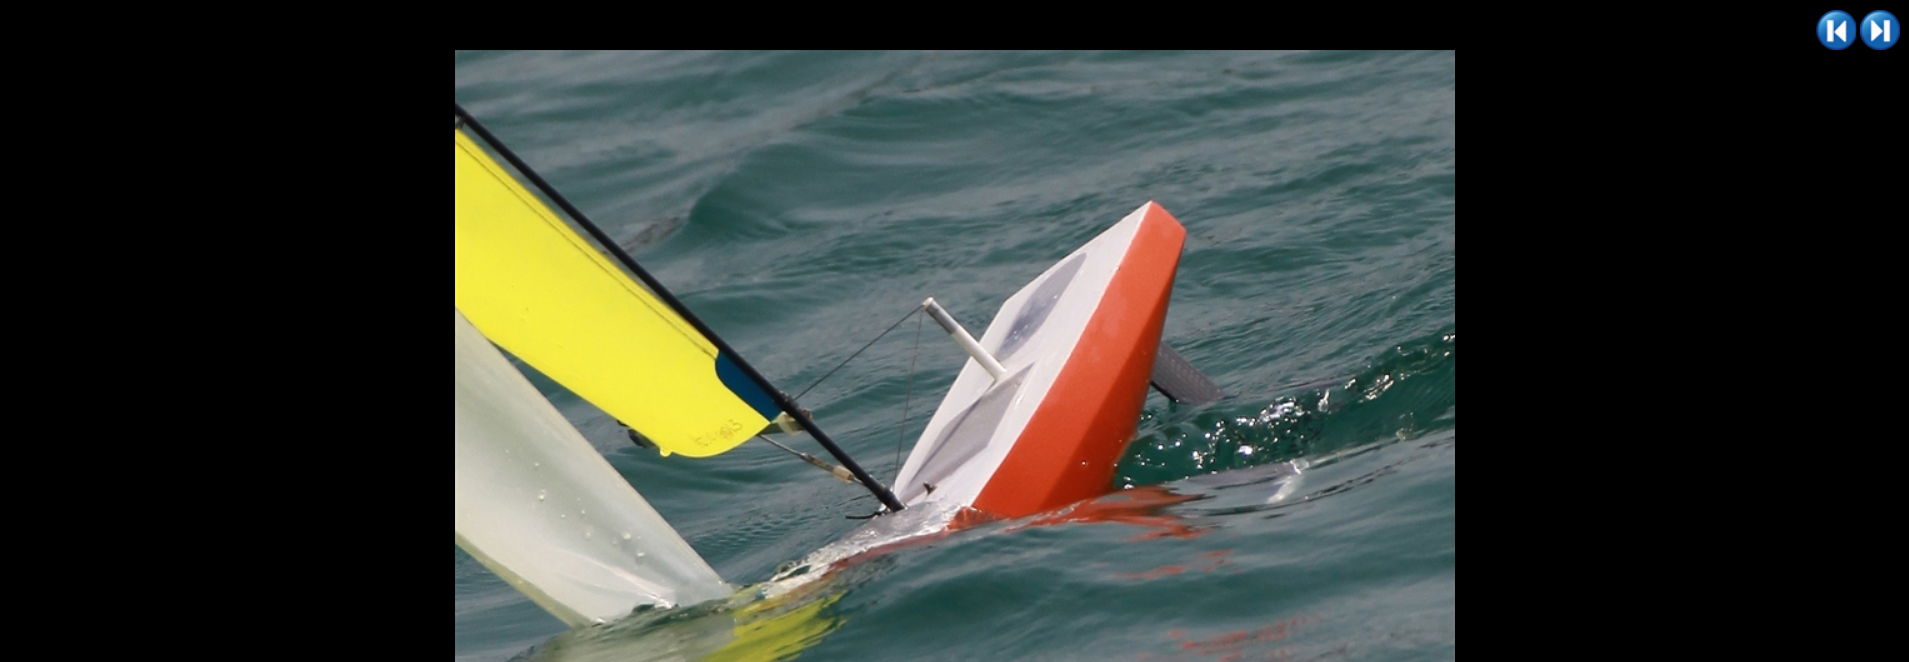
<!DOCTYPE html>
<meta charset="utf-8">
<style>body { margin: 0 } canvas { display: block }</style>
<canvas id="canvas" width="1909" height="662"></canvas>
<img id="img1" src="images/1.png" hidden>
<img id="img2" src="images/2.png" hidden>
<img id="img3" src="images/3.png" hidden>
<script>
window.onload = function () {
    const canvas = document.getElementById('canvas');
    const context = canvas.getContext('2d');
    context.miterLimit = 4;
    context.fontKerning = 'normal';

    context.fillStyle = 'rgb(0, 0, 0)';
    context.fillRect(0, 0, 1909, 662);
    context.drawImage(document.getElementById('img1'), 1816, 10, 41, 40);
    context.drawImage(document.getElementById('img2'), 1860, 10, 40, 40);
    context.drawImage(document.getElementById('img3'), 455, 50, 1000, 612);
};
</script>
